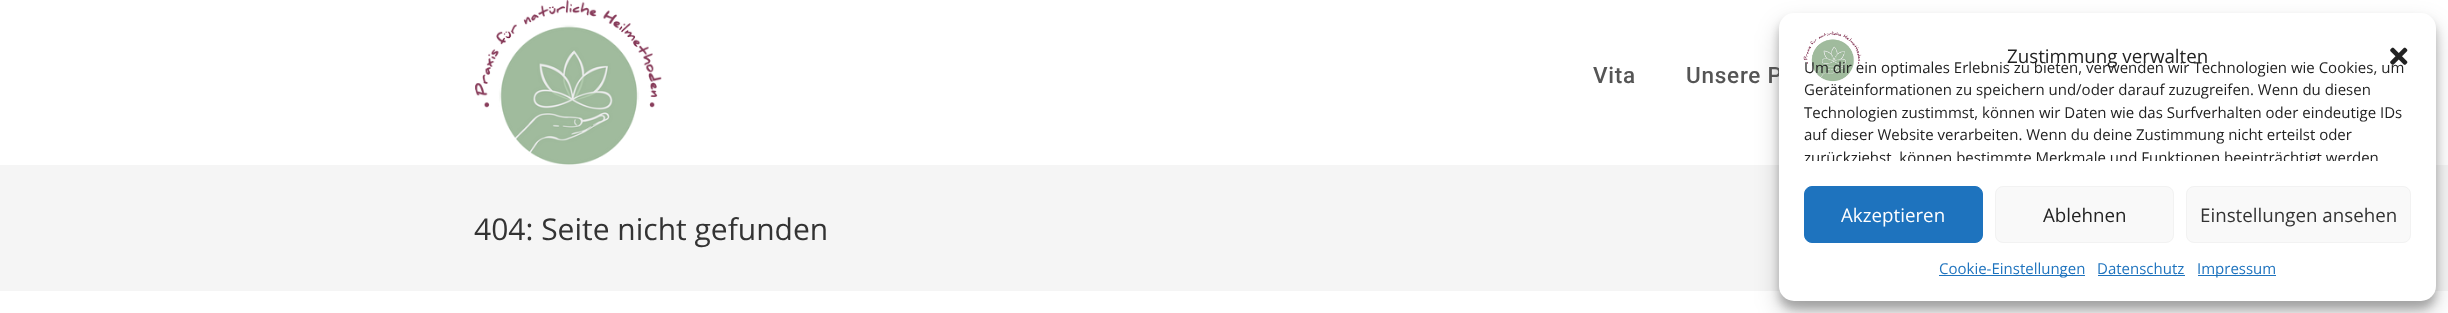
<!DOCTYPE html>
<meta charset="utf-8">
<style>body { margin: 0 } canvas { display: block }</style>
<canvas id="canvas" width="2448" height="313"></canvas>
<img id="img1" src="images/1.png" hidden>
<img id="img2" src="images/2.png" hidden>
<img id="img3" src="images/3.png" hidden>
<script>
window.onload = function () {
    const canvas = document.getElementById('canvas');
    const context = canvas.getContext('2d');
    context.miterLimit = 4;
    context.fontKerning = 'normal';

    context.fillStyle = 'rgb(255, 255, 255)';
    context.fillRect(0, 0, 2448, 313);
    context.drawImage(document.getElementById('img1'), 475, 0, 187, 165);
    context.fillStyle = 'rgb(245, 245, 245)';
    context.fillRect(0, 165, 2448, 126);
    context.fillStyle = 'rgba(0, 0, 0, 0.23)';
    context.filter = 'blur(4px)';
    context.beginPath();
    context.roundRect(1779, 20, 657, 289, 15);
    context.fill();
    context.filter = 'none';
    context.fillStyle = 'rgba(0, 0, 0, 0.19)';
    context.filter = 'blur(12.5px)';
    context.beginPath();
    context.roundRect(1779, 25, 657, 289, 15);
    context.fill();
    context.filter = 'none';
    context.letterSpacing = '0.75px';
    context.font = '500 22.5px Roboto';
    context.fillStyle = 'rgb(85, 85, 85)';
    context.fillText('Vita', 1593, 83);
    context.fillText('Unsere P', 1686, 83);
    context.letterSpacing = '0px';
    context.font = '30px Open Sans';
    context.fillStyle = 'rgb(51, 51, 51)';
    context.fillText('404: Seite nicht gefunden', 474, 240);
    context.fillStyle = 'rgb(255, 255, 255)';
    context.beginPath();
    context.roundRect(1779, 13, 657, 288, 15);
    context.fill();
    context.drawImage(document.getElementById('img2'), 1803, 31, 59, 51);
    context.font = '18.75px Open Sans';
    context.fillStyle = 'rgb(34, 34, 34)';
    context.fillText('Zustimmung verwalten', 2007, 63);
    context.drawImage(document.getElementById('img3'), 2390, 47, 18, 18);
    context.font = '15px Open Sans';
    context.fillText('Um dir ein optimales Erlebnis zu bieten, verwenden wir Technologien wie Cookies, um', 1804, 73);
    context.fillText('Geräteinformationen zu speichern und/oder darauf zuzugreifen. Wenn du diesen', 1804, 95);
    context.fillText('Technologien zustimmst, können wir Daten wie das Surfverhalten oder eindeutige IDs', 1804, 118);
    context.fillText('auf dieser Website verarbeiten. Wenn du deine Zustimmung nicht erteilst oder', 1804, 140);
    context.save();
    context.beginPath();
    context.rect(1804, 56, 607, 105);
    context.clip();
    context.fillText('zurückziehst, können bestimmte Merkmale und Funktionen beeinträchtigt werden', 1804, 163);
    context.restore();
    context.fillStyle = 'rgb(30, 115, 190)';
    context.beginPath();
    context.roundRect(1804.5, 186.5, 178, 56, 7.5);
    context.fill();
    context.strokeStyle = 'rgb(30, 115, 190)';
    context.stroke();
    context.font = '18.75px Open Sans';
    context.fillStyle = 'rgb(255, 255, 255)';
    context.fillText('Akzeptieren', 1841, 222);
    context.fillStyle = 'rgb(249, 249, 249)';
    context.beginPath();
    context.roundRect(1995.5, 186.5, 178, 56, 7.5);
    context.fill();
    context.strokeStyle = 'rgb(242, 242, 242)';
    context.stroke();
    context.fillStyle = 'rgb(34, 34, 34)';
    context.fillText('Ablehnen', 2043, 222);
    context.fillStyle = 'rgb(249, 249, 249)';
    context.beginPath();
    context.roundRect(2186.5, 186.5, 224, 56, 7.5);
    context.fill();
    context.stroke();
    context.fillStyle = 'rgb(51, 51, 51)';
    context.fillText('Einstellungen ansehen', 2200, 222);
    context.fillStyle = 'rgb(30, 115, 190)';
    context.fillRect(1939, 275, 146, 1);
    context.font = '15px Open Sans';
    context.fillText('Cookie-Einstellungen', 1939, 274);
    context.fillText('Datenschutz', 2097, 274);
    context.fillRect(2098, 275, 87, 1);
    context.fillRect(2198, 275, 78, 1);
    context.fillText('Impressum', 2197, 274);
};
</script>
